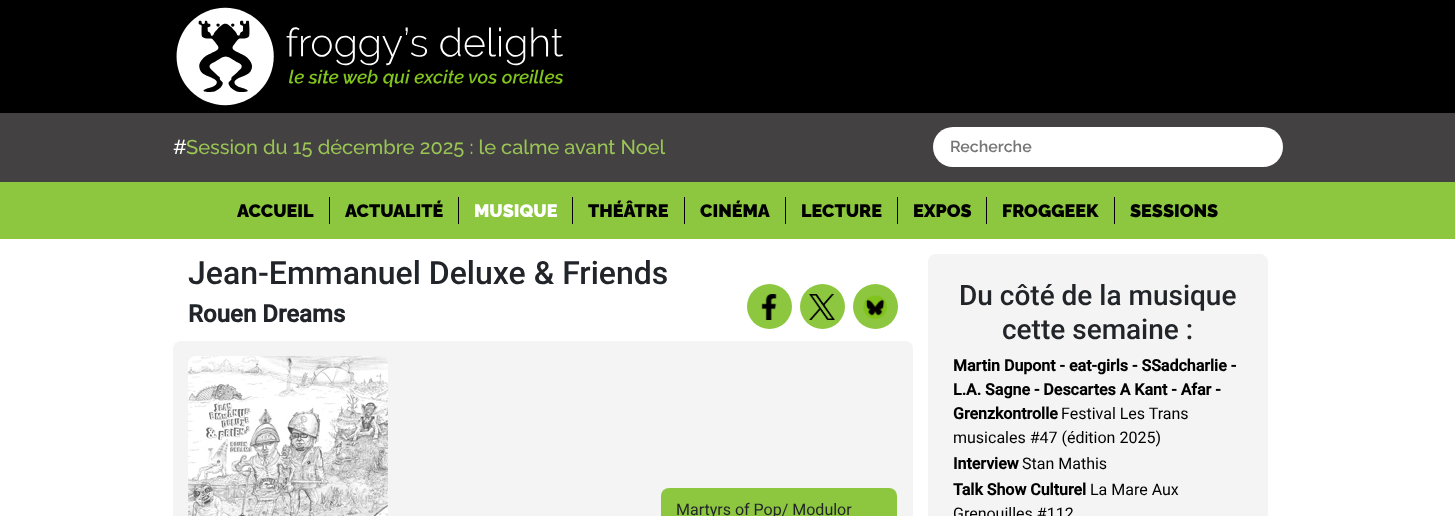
<!DOCTYPE html>
<meta charset="utf-8">
<style>body { margin: 0 } canvas { display: block }</style>
<canvas id="canvas" width="1455" height="516"></canvas>
<img id="img1" src="images/1.png" hidden>
<img id="img2" src="images/2.png" hidden>
<img id="img3" src="images/3.png" hidden>
<img id="img4" src="images/4.png" hidden>
<img id="img5" src="images/5.png" hidden>
<script>
window.onload = function () {
    const canvas = document.getElementById('canvas');
    const context = canvas.getContext('2d');
    context.miterLimit = 4;
    context.fontKerning = 'normal';

    context.fillStyle = 'rgb(255, 255, 255)';
    context.fillRect(0, 0, 1455, 516);
    context.fillStyle = 'rgb(0, 0, 0)';
    context.fillRect(0, 0, 1455, 113);
    context.drawImage(document.getElementById('img1'), 176, 7, 387, 99);
    context.fillStyle = 'rgb(67, 65, 66)';
    context.fillRect(0, 113, 1455, 69);
    context.fillStyle = 'rgb(255, 255, 255)';
    context.beginPath();
    context.roundRect(933, 127, 350, 40, 20);
    context.fill();
    context.fillStyle = 'rgb(141, 199, 63)';
    context.fillRect(0, 182, 1455, 57);
    context.fillStyle = 'rgb(0, 0, 0)';
    context.fillRect(329, 197, 1, 27);
    context.fillRect(458, 197, 1, 27);
    context.fillRect(572, 197, 1, 27);
    context.fillRect(684, 197, 1, 27);
    context.fillRect(785, 197, 1, 27);
    context.fillRect(897, 197, 1, 27);
    context.fillRect(986, 197, 1, 27);
    context.fillRect(1114, 197, 1, 27);
    context.fillStyle = 'rgb(141, 199, 63)';
    context.beginPath();
    context.arc(769.5, 306.5, 22.5, 0, 2 * Math.PI);
    context.fill();
    context.drawImage(document.getElementById('img2'), 761, 294, 16, 26);
    context.beginPath();
    context.arc(822.5, 306.5, 22.5, 0, 2 * Math.PI);
    context.fill();
    context.drawImage(document.getElementById('img3'), 809, 294, 26, 26);
    context.beginPath();
    context.arc(875.5, 306.5, 22.5, 0, 2 * Math.PI);
    context.fill();
    context.drawImage(document.getElementById('img4'), 863, 295, 24, 24);
    context.fillStyle = 'rgb(244, 244, 244)';
    context.beginPath();
    context.roundRect(173, 341, 740, 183, 8);
    context.fill();
    context.drawImage(document.getElementById('img5'), 188, 356, 200, 160);
    context.fillStyle = 'rgb(141, 199, 63)';
    context.beginPath();
    context.roundRect(661, 488, 236, 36, 8);
    context.fill();
    context.fillStyle = 'rgb(244, 244, 244)';
    context.beginPath();
    context.roundRect(928, 254, 340, 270, 8);
    context.fill();
    context.font = '500 20px Raleway';
    context.fillStyle = 'rgb(255, 255, 255)';
    context.fillText('#', 173, 154);
    context.fillStyle = 'rgb(154, 197, 85)';
    context.fillText('Session du 15 décembre 2025 : le calme avant Noel', 186, 154);
    context.font = '600 16px Raleway';
    context.fillStyle = 'rgb(117, 117, 117)';
    context.fillText('Recherche', 950, 152);
    context.font = '900 18px Raleway';
    context.fillStyle = 'rgb(0, 0, 0)';
    context.fillText('ACCUEIL', 237, 217);
    context.fillText('ACTUALITÉ', 345, 217);
    context.fillStyle = 'rgb(255, 255, 255)';
    context.fillText('MUSIQUE', 474, 217);
    context.fillStyle = 'rgb(0, 0, 0)';
    context.fillText('THÉÂTRE', 588, 217);
    context.fillText('CINÉMA', 700, 217);
    context.fillText('LECTURE', 801, 217);
    context.fillText('EXPOS', 913, 217);
    context.fillText('FROGGEEK', 1002, 217);
    context.fillText('SESSIONS', 1130, 217);
    context.font = '500 32px Roboto';
    context.fillStyle = 'rgb(33, 37, 41)';
    context.fillText('Jean-Emmanuel Deluxe & Friends', 188, 284);
    context.font = 'bold 24px Roboto';
    context.fillText('Rouen Dreams', 188, 322);
    context.font = '16px Roboto';
    context.fillText('Martyrs of Pop/ Modulor', 676, 515);
    context.font = '500 28px Roboto';
    context.fillText('Du côté de la musique', 959, 305);
    context.fillText('cette semaine :', 1002, 339);
    context.font = 'bold 16px Roboto';
    context.fillStyle = 'rgb(0, 0, 0)';
    context.fillText('Martin Dupont - eat-girls - SSadcharlie -', 953, 371);
    context.fillText('L.A. Sagne - Descartes A Kant - Afar -', 953, 395);
    context.fillText('Grenzkontrolle', 953, 419);
    context.font = '16px Roboto';
    context.fillText('Festival Les Trans', 1061, 419);
    context.fillText('musicales #47 (édition 2025)', 953, 443);
    context.font = 'bold 16px Roboto';
    context.fillText('Interview', 953, 469);
    context.font = '16px Roboto';
    context.fillText('Stan Mathis', 1022, 469);
    context.font = 'bold 16px Roboto';
    context.fillText('Talk Show Culturel', 953, 495);
    context.font = '16px Roboto';
    context.fillText('La Mare Aux', 1090, 495);
    context.fillText('Grenouilles #112', 953, 519);
};
</script>
